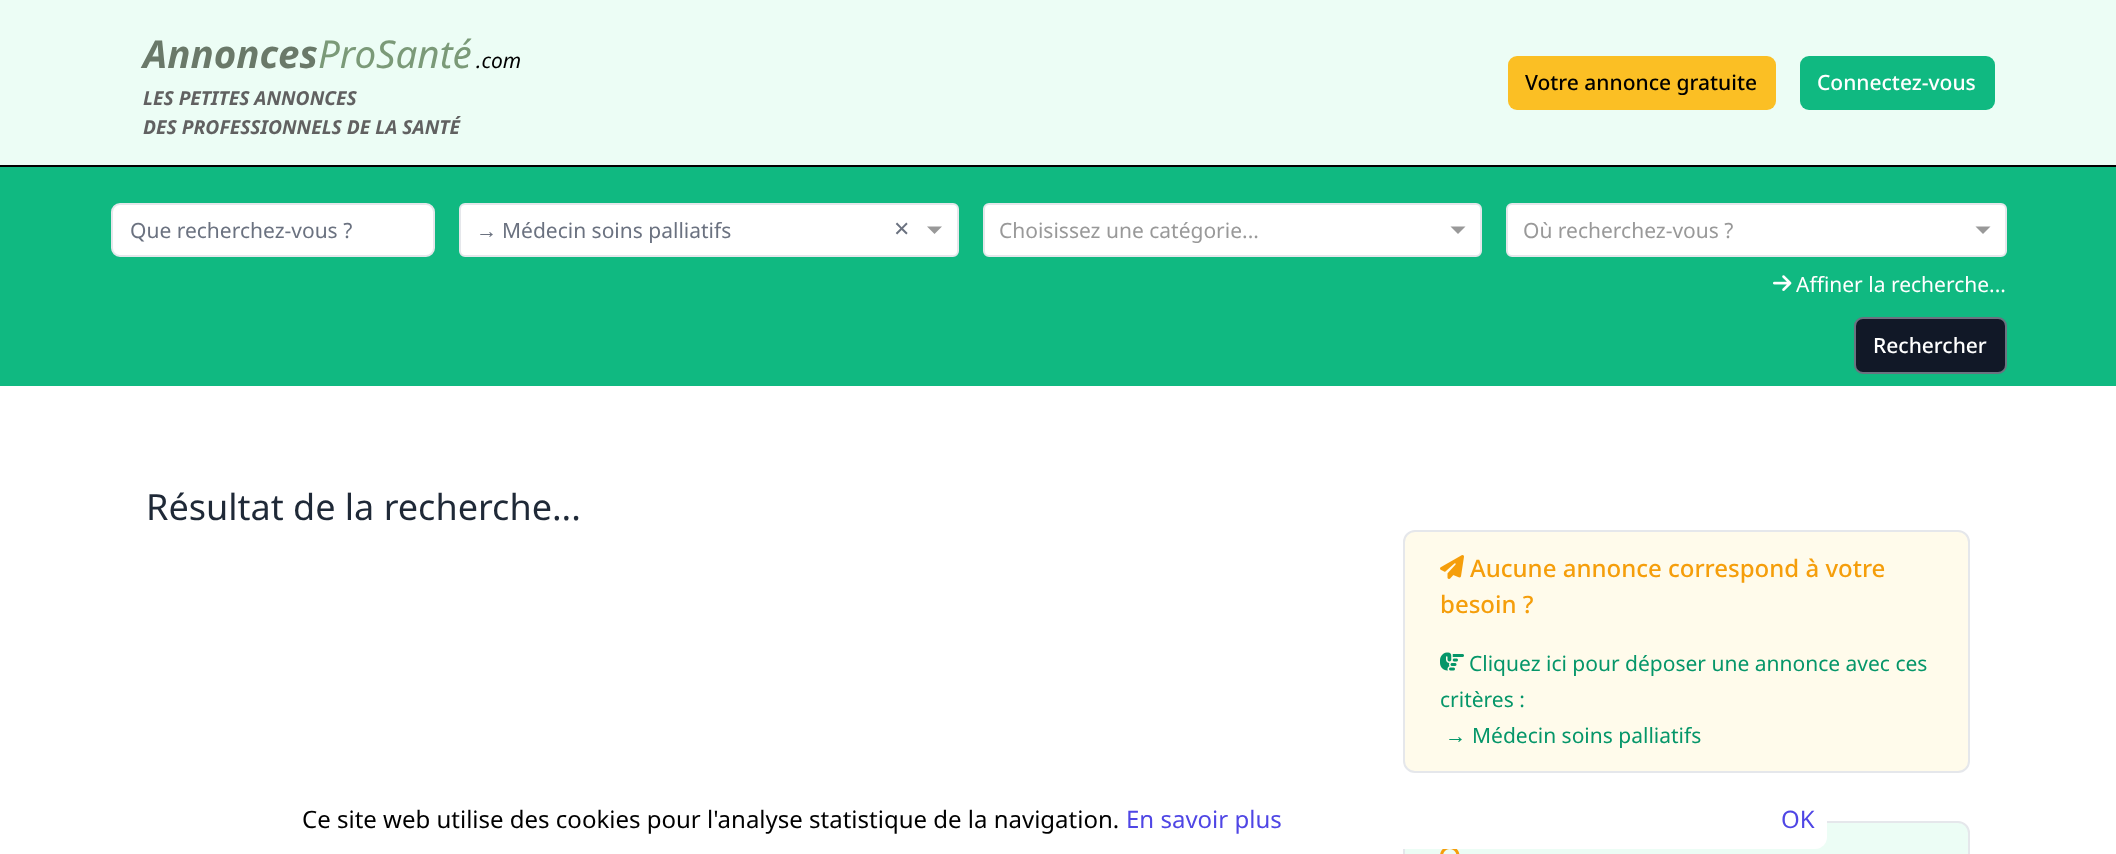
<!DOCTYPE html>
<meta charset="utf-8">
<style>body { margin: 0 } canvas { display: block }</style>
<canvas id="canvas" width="2116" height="854"></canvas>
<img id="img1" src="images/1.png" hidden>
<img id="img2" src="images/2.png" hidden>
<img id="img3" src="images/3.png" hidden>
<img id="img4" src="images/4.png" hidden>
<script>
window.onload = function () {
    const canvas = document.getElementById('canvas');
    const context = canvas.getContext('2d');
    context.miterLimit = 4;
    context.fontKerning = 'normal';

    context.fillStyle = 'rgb(255, 255, 255)';
    context.fillRect(0, 0, 2116, 854);
    context.fillStyle = 'rgb(236, 253, 245)';
    context.fillRect(0, 0, 2116, 165);
    context.fillStyle = 'rgb(0, 0, 0)';
    context.fillRect(0, 165, 2116, 2);
    context.fillStyle = 'rgb(251, 191, 36)';
    context.beginPath();
    context.roundRect(1508, 56, 268, 54, 9);
    context.fill();
    context.fillStyle = 'rgb(16, 185, 129)';
    context.beginPath();
    context.roundRect(1800, 56, 195, 54, 9);
    context.fill();
    context.fillRect(0, 167, 2116, 219);
    context.fillStyle = 'rgb(255, 255, 255)';
    context.beginPath();
    context.roundRect(112, 204, 322, 52, 8);
    context.fill();
    context.strokeStyle = 'rgb(229, 231, 235)';
    context.lineWidth = 2;
    context.stroke();
    context.beginPath();
    context.roundRect(460, 204, 498, 52, 5);
    context.fill();
    context.stroke();
    context.fillStyle = 'rgb(153, 153, 153)';
    context.beginPath();
    context.moveTo(927, 226.5);
    context.lineTo(942, 226.5);
    context.lineTo(934.5, 234);
    context.closePath();
    context.fill();
    context.fillStyle = 'rgb(255, 255, 255)';
    context.beginPath();
    context.roundRect(984, 204, 497, 52, 5);
    context.fill();
    context.stroke();
    context.fillStyle = 'rgb(153, 153, 153)';
    context.beginPath();
    context.moveTo(1450.5, 226.5);
    context.lineTo(1465.5, 226.5);
    context.lineTo(1458, 234);
    context.closePath();
    context.fill();
    context.fillStyle = 'rgb(255, 255, 255)';
    context.beginPath();
    context.roundRect(1507, 204, 499, 52, 5);
    context.fill();
    context.stroke();
    context.fillStyle = 'rgb(153, 153, 153)';
    context.beginPath();
    context.moveTo(1975.5, 226.5);
    context.lineTo(1990.5, 226.5);
    context.lineTo(1983, 234);
    context.closePath();
    context.fill();
    context.drawImage(document.getElementById('img1'), 1773, 275, 19, 16);
    context.fillStyle = 'rgb(17, 24, 39)';
    context.beginPath();
    context.roundRect(1855, 318, 151, 55, 8);
    context.fill();
    context.strokeStyle = 'rgb(107, 114, 128)';
    context.stroke();
    context.fillStyle = 'rgb(255, 251, 235)';
    context.beginPath();
    context.roundRect(1404, 531, 565, 241, 11);
    context.fill();
    context.strokeStyle = 'rgb(229, 231, 235)';
    context.stroke();
    context.drawImage(document.getElementById('img2'), 1440, 555, 24, 24);
    context.drawImage(document.getElementById('img3'), 1440, 652, 24, 19);
    context.fillStyle = 'rgb(236, 253, 245)';
    context.beginPath();
    context.roundRect(1404, 822, 565, 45, 11);
    context.fill();
    context.stroke();
    context.drawImage(document.getElementById('img4'), 1440, 849, 20, 5);
    context.fillStyle = 'rgb(255, 255, 255)';
    context.beginPath();
    context.roundRect(291, 789, 1536, 60, 12);
    context.fill();
    context.font = 'italic bold 38.5px Noto Sans';
    context.fillStyle = 'rgb(106, 121, 105)';
    context.fillText('Annonces', 143, 68);
    context.font = 'italic 38.5px Noto Sans';
    context.fillStyle = 'rgb(123, 154, 120)';
    context.fillText('ProSanté', 318, 68);
    context.font = 'italic 21px Noto Sans';
    context.fillStyle = 'rgb(0, 0, 0)';
    context.fillText('.com', 476, 68);
    context.font = 'italic bold 19.25px Noto Sans';
    context.fillStyle = 'rgb(97, 97, 97)';
    context.fillText('LES PETITES ANNONCES', 143, 105);
    context.fillText('DES PROFESSIONNELS DE LA SANTÉ', 143, 134);
    context.font = '500 21px Noto Sans';
    context.fillStyle = 'rgb(0, 0, 0)';
    context.fillText('Votre annonce gratuite', 1525, 90);
    context.fillStyle = 'rgb(255, 255, 255)';
    context.fillText('Connectez-vous', 1817, 90);
    context.font = '21px Noto Sans';
    context.fillStyle = 'rgb(107, 114, 128)';
    context.fillText('Que recherchez-vous ?', 130, 238);
    context.font = '21px Liberation Sans';
    context.fillText('→', 476, 238);
    context.font = '21px Noto Sans';
    context.fillText('Médecin soins palliatifs', 502, 238);
    context.font = '27px Noto Sans';
    context.fillText('×', 894, 238);
    context.font = '21px Noto Sans';
    context.fillStyle = 'rgb(153, 153, 153)';
    context.fillText('Choisissez une catégorie...', 999, 238);
    context.fillText('Où recherchez-vous ?', 1523, 238);
    context.fillStyle = 'rgb(255, 255, 255)';
    context.fillText('Affiner la recherche...', 1796, 292);
    context.font = '500 21px Noto Sans';
    context.fillText('Rechercher', 1873, 353);
    context.font = '36px Noto Sans';
    context.fillStyle = 'rgb(31, 41, 55)';
    context.fillText('Résultat de la recherche...', 146, 520);
    context.font = '500 24px Noto Sans';
    context.fillStyle = 'rgb(245, 158, 11)';
    context.fillText('Aucune annonce correspond à votre', 1470, 577);
    context.fillText('besoin ?', 1440, 613);
    context.font = '21px Noto Sans';
    context.fillStyle = 'rgb(5, 150, 105)';
    context.fillText('Cliquez ici pour déposer une annonce avec ces', 1469, 671);
    context.fillText('critères :', 1440, 707);
    context.font = '21px Liberation Sans';
    context.fillText('→', 1445, 743);
    context.font = '21px Noto Sans';
    context.fillText('Médecin soins palliatifs', 1472, 743);
    context.font = '24px Noto Sans';
    context.fillStyle = 'rgb(0, 0, 0)';
    context.fillText('Ce site web utilise des cookies pour l\'analyse statistique de la navigation.', 302, 828);
    context.fillStyle = 'rgb(79, 70, 229)';
    context.fillText('En savoir plus', 1126, 828);
    context.fillText('OK', 1781, 828);
};
</script>
